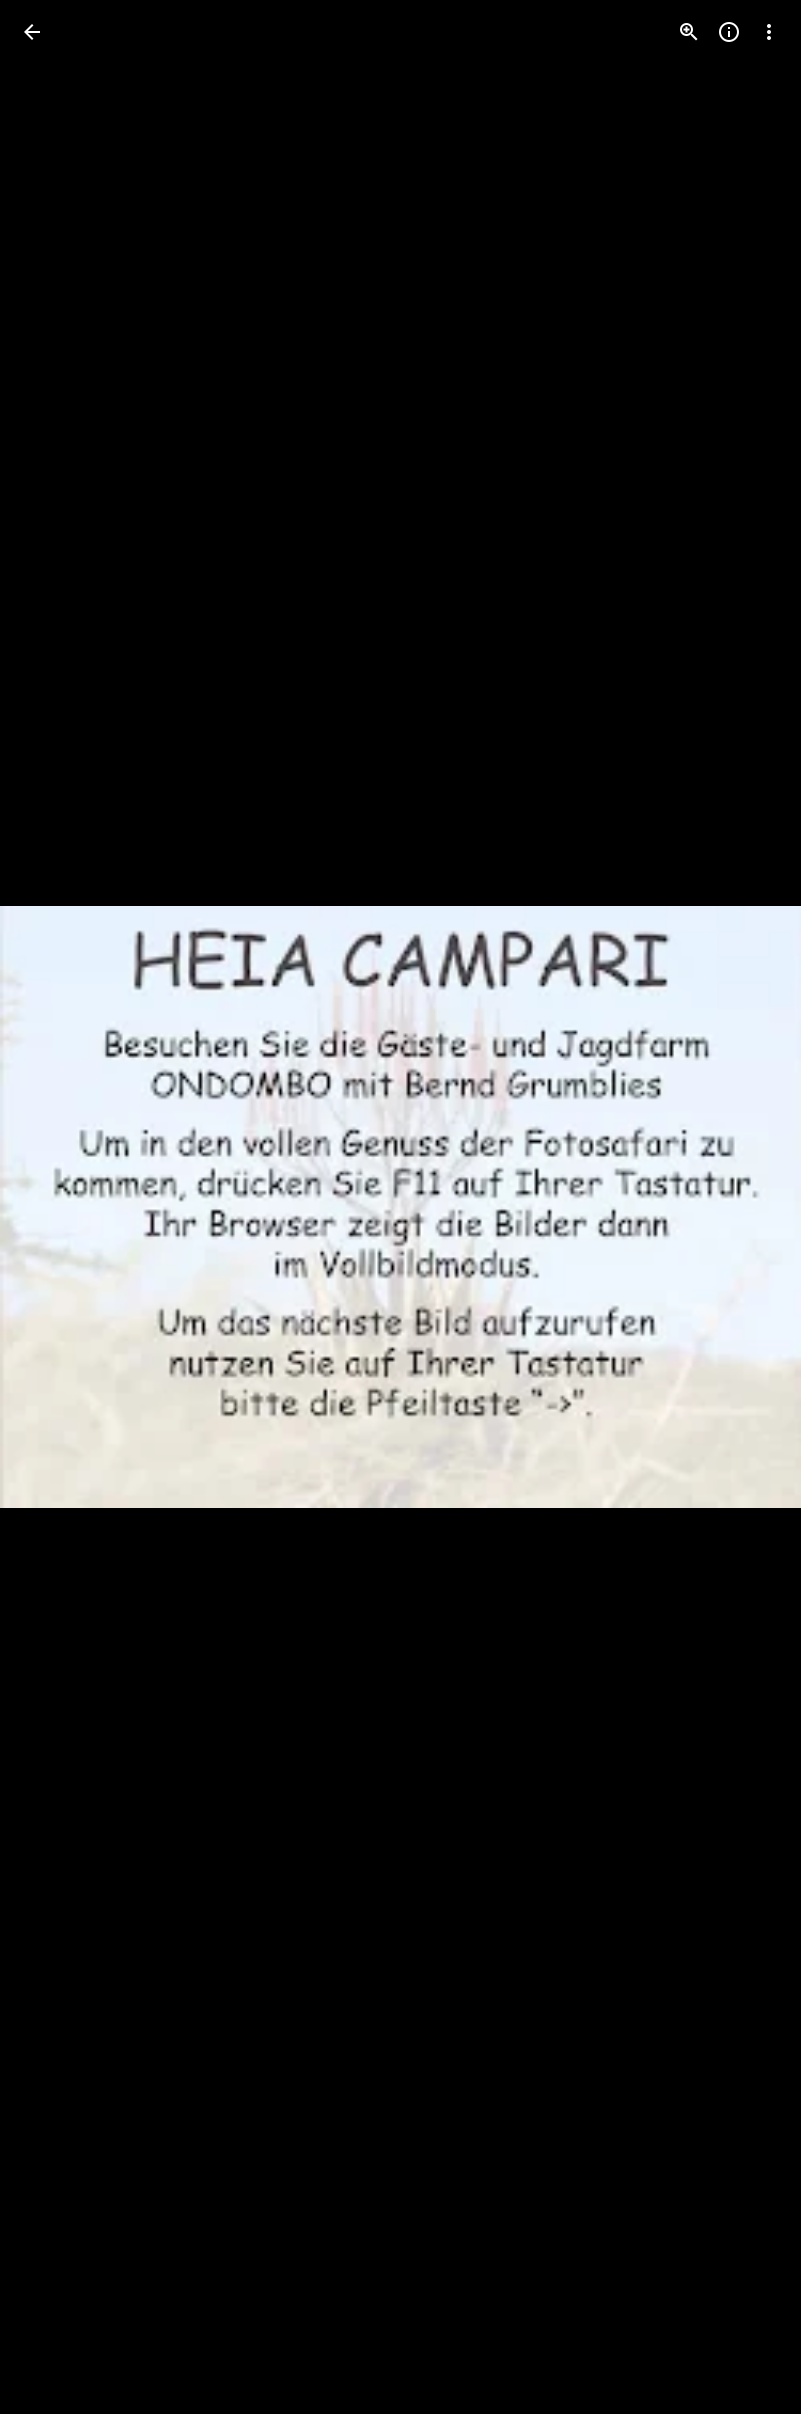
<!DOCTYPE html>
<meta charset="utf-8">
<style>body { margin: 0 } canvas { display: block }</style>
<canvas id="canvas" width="801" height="2414"></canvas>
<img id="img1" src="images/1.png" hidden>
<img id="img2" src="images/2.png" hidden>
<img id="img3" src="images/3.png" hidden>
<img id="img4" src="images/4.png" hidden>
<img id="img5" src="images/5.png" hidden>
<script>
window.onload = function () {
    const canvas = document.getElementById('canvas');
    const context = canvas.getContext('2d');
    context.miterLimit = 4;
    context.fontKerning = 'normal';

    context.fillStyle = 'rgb(0, 0, 0)';
    context.fillRect(0, 0, 801, 2414);
    context.drawImage(document.getElementById('img1'), 24, 24, 16, 16);
    context.drawImage(document.getElementById('img2'), 680, 23, 18, 18);
    context.drawImage(document.getElementById('img3'), 719, 22, 20, 20);
    context.drawImage(document.getElementById('img4'), 767, 24, 4, 16);
    context.drawImage(document.getElementById('img5'), 0, 906, 801, 602);
};
</script>
